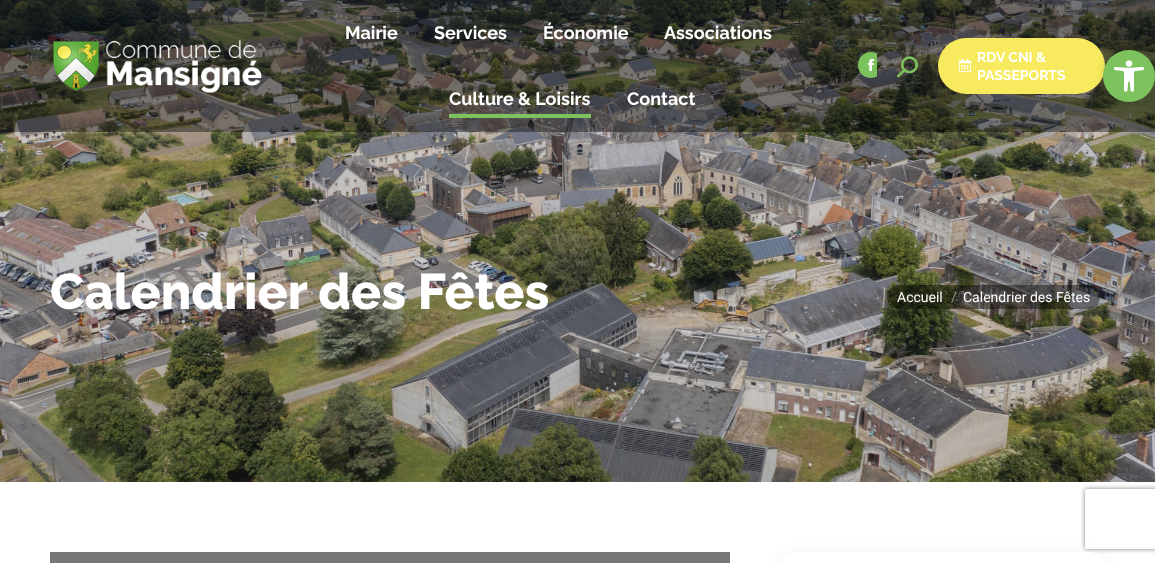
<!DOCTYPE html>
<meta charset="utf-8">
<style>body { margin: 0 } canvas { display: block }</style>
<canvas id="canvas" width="1155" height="563"></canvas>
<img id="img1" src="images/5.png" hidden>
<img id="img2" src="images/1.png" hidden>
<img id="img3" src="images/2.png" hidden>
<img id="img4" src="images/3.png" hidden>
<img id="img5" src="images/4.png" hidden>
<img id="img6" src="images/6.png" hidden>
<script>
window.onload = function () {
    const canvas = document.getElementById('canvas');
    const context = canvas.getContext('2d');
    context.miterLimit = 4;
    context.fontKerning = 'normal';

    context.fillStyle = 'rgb(255, 255, 255)';
    context.fillRect(0, 0, 1155, 563);
    context.drawImage(document.getElementById('img1'), 0, 0, 1155, 482);
    context.fillStyle = 'rgba(0, 0, 0, 0.39)';
    context.fillRect(0, 0, 1155, 132);
    context.drawImage(document.getElementById('img2'), 53, 40, 209, 54);
    context.fillStyle = 'rgb(124, 194, 93)';
    context.fillRect(449, 114, 142, 4);
    context.save();
    context.beginPath();
    context.rect(858, 52, 19, 28);
    context.clip();
    context.beginPath();
    context.arc(871, 65, 13, 0, 2 * Math.PI);
    context.fill();
    context.restore();
    context.drawImage(document.getElementById('img3'), 868, 59, 6, 12);
    context.drawImage(document.getElementById('img4'), 897, 56, 21, 22);
    context.fillStyle = 'rgb(247, 234, 94)';
    context.beginPath();
    context.roundRect(938, 38, 167, 56, 28);
    context.fill();
    context.drawImage(document.getElementById('img5'), 958, 58, 14, 14);
    context.fillStyle = 'rgba(0, 0, 0, 0.41)';
    context.beginPath();
    context.roundRect(887, 285, 213, 24, 12);
    context.fill();
    context.fillStyle = 'rgb(119, 119, 119)';
    context.fillRect(50, 552, 680, 11);
    context.fillStyle = 'rgba(0, 0, 0, 0.1)';
    context.filter = 'blur(9px)';
    context.beginPath();
    context.roundRect(780, 558, 325, 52, 20);
    context.fill();
    context.filter = 'none';
    context.save();
    context.beginPath();
    context.moveTo(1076, 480);
    context.lineTo(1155, 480);
    context.lineTo(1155, 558);
    context.lineTo(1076, 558);
    context.closePath();
    context.moveTo(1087, 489);
    context.lineTo(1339, 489);
    context.bezierCurveTo(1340, 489, 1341, 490, 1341, 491);
    context.lineTo(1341, 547);
    context.bezierCurveTo(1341, 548, 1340, 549, 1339, 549);
    context.lineTo(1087, 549);
    context.bezierCurveTo(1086, 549, 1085, 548, 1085, 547);
    context.lineTo(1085, 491);
    context.bezierCurveTo(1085, 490, 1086, 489, 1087, 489);
    context.closePath();
    context.clip('evenodd');
    context.fillStyle = 'rgb(128, 128, 128)';
    context.filter = 'blur(2.5px)';
    context.beginPath();
    context.roundRect(1085, 489, 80, 60, 2);
    context.fill();
    context.filter = 'none';
    context.restore();
    context.fillStyle = 'rgb(255, 255, 255)';
    context.beginPath();
    context.roundRect(780, 552, 325, 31, 20);
    context.fill();
    context.fillStyle = 'rgba(0, 0, 0, 0.1)';
    context.filter = 'blur(5px)';
    context.beginPath();
    context.roundRect(1103, 50, 52, 52, 26);
    context.fill();
    context.filter = 'none';
    context.fillStyle = 'rgb(124, 194, 93)';
    context.beginPath();
    context.arc(1129, 76, 26, 0, 2 * Math.PI);
    context.fill();
    context.drawImage(document.getElementById('img6'), 1114, 60, 30, 32);
    context.font = 'bold 18px Raleway';
    context.fillStyle = 'rgb(255, 255, 255)';
    context.fillText('Mairie', 345, 39);
    context.fillText('Services', 434, 39);
    context.fillText('Économie', 543, 39);
    context.fillText('Associations', 664, 39);
    context.fillText('Culture & Loisirs', 449, 105);
    context.fillText('Contact', 627, 105);
    context.font = 'bold 14px Raleway';
    context.fillText('RDV CNI &', 977, 62);
    context.fillText('PASSEPORTS', 977, 80);
    context.font = '800 50px Raleway';
    context.fillText('Calendrier des Fêtes', 50, 309);
    context.font = '14px Roboto';
    context.fillText('Accueil', 897, 302);
    context.fillStyle = 'rgb(149, 150, 140)';
    context.fillText('/', 951, 302);
    context.fillStyle = 'rgb(255, 255, 255)';
    context.fillText('Calendrier des Fêtes', 963, 302);
};
</script>
